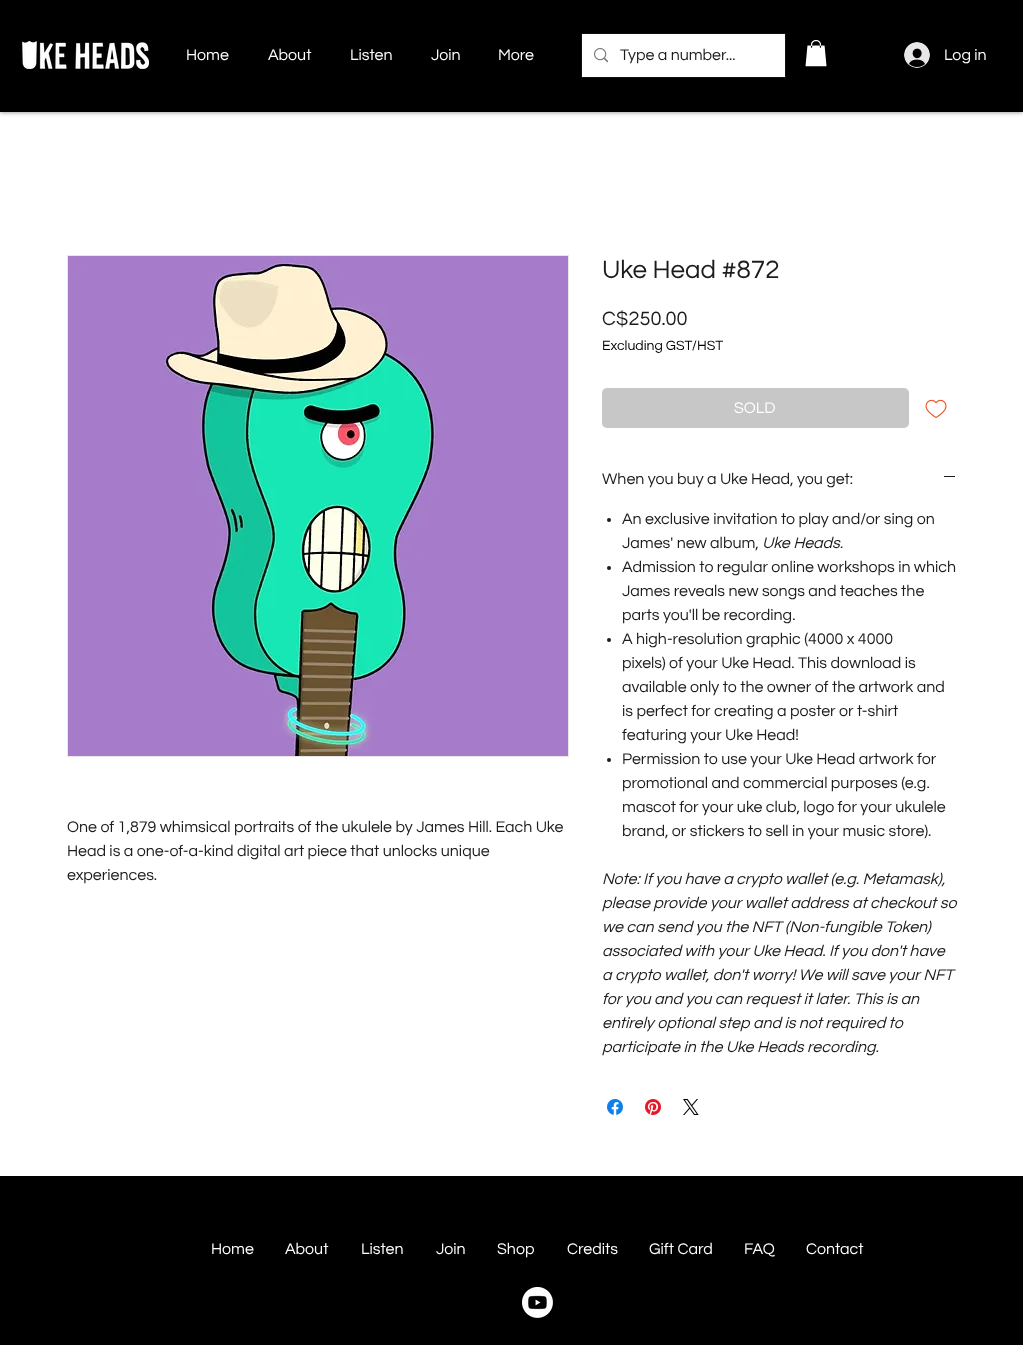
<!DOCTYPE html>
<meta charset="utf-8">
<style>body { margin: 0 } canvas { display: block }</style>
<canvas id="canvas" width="1023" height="1345"></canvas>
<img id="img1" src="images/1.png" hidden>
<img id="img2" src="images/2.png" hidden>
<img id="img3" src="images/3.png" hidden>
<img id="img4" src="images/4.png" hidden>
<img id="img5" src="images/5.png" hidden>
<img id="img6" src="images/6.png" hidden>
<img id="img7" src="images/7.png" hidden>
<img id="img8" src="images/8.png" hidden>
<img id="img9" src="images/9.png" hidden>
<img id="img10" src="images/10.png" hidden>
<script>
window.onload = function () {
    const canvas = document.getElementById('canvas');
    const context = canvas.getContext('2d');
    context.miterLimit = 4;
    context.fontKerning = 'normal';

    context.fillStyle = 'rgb(255, 255, 255)';
    context.fillRect(0, 0, 1023, 1345);
    context.fillStyle = 'rgba(0, 0, 0, 0.5)';
    context.filter = 'blur(2.5px)';
    context.beginPath();
    context.rect(0, 0, 1023, 112);
    context.fill();
    context.filter = 'none';
    context.fillStyle = 'rgb(0, 0, 0)';
    context.fillRect(0, 0, 1023, 112);
    context.drawImage(document.getElementById('img1'), 22, 41, 127, 28);
    context.strokeStyle = 'rgb(17, 17, 17)';
    context.strokeRect(581.5, 33.5, 204, 44);
    context.fillStyle = 'rgb(255, 255, 255)';
    context.fillRect(582, 34, 203, 43);
    context.drawImage(document.getElementById('img2'), 594, 48, 14, 15);
    context.drawImage(document.getElementById('img3'), 805, 40, 22, 27);
    context.drawImage(document.getElementById('img4'), 904, 42, 26, 26);
    context.strokeStyle = 'rgb(232, 230, 230)';
    context.strokeRect(67.5, 255.5, 501, 501);
    context.drawImage(document.getElementById('img5'), 68, 256, 500, 500);
    context.fillStyle = 'rgb(199, 199, 199)';
    context.beginPath();
    context.roundRect(602, 388, 307, 40, 5);
    context.fill();
    context.drawImage(document.getElementById('img6'), 925, 399, 22, 19);
    context.fillStyle = 'rgb(28, 28, 28)';
    context.fillRect(944, 476, 11, 1);
    context.beginPath();
    context.arc(609, 520, 2, 0, 2 * Math.PI);
    context.fill();
    context.beginPath();
    context.arc(609, 568, 2, 0, 2 * Math.PI);
    context.fill();
    context.beginPath();
    context.arc(609, 640, 2, 0, 2 * Math.PI);
    context.fill();
    context.beginPath();
    context.arc(609, 760, 2, 0, 2 * Math.PI);
    context.fill();
    context.drawImage(document.getElementById('img7'), 607, 1099, 16, 16);
    context.drawImage(document.getElementById('img8'), 645, 1099, 16, 16);
    context.drawImage(document.getElementById('img9'), 683, 1099, 16, 16);
    context.fillStyle = 'rgb(0, 0, 0)';
    context.fillRect(0, 1176, 1023, 169);
    context.drawImage(document.getElementById('img10'), 522, 1287, 31, 31);
    context.font = '16px Questrial';
    context.fillStyle = 'rgb(255, 255, 255)';
    context.fillText('Home', 186, 60);
    context.fillText('About', 268, 60);
    context.fillText('Listen', 350, 60);
    context.fillText('Join', 431, 60);
    context.fillText('More', 498, 60);
    context.fillStyle = 'rgb(28, 28, 28)';
    context.fillText('Type a number...', 620, 60);
    context.fillStyle = 'rgb(255, 255, 255)';
    context.fillText('Log in', 944, 60);
    context.fillStyle = 'rgb(28, 28, 28)';
    context.fillText('One of 1,879 whimsical portraits of the ukulele by James Hill. Each Uke', 67, 832);
    context.fillText('Head is a one-of-a-kind digital art piece that unlocks unique', 67, 856);
    context.fillText('experiences.', 67, 880);
    context.font = '26px Questrial';
    context.fillText('Uke Head #872', 602, 278);
    context.font = '20px Questrial';
    context.fillText('C$250.00', 602, 325);
    context.font = '14px Questrial';
    context.fillStyle = 'rgb(0, 0, 0)';
    context.fillText('Excluding GST/HST', 602, 350);
    context.font = '16px Questrial';
    context.fillStyle = 'rgb(255, 255, 255)';
    context.fillText('SOLD', 734, 413);
    context.fillStyle = 'rgb(28, 28, 28)';
    context.fillText('When you buy a Uke Head, you get:', 602, 484);
    context.fillText('An exclusive invitation to play and/or sing on', 622, 524);
    context.fillText('James\' new album,', 622, 548);
    context.font = 'italic 16px Questrial';
    context.fillText('Uke Heads.', 762, 548);
    context.font = '16px Questrial';
    context.fillText('Admission to regular online workshops in which', 622, 572);
    context.fillText('James reveals new songs and teaches the', 622, 596);
    context.fillText('parts you\'ll be recording.', 622, 620);
    context.fillText('A high-resolution graphic (4000 x 4000', 622, 644);
    context.fillText('pixels) of your Uke Head. This download is', 622, 668);
    context.fillText('available only to the owner of the artwork and', 622, 692);
    context.fillText('is perfect for creating a poster or t-shirt', 622, 716);
    context.fillText('featuring your Uke Head!', 622, 740);
    context.fillText('Permission to use your Uke Head artwork for', 622, 764);
    context.fillText('promotional and commercial purposes (e.g.', 622, 788);
    context.fillText('mascot for your uke club, logo for your ukulele', 622, 812);
    context.fillText('brand, or stickers to sell in your music store).', 622, 836);
    context.font = 'italic 16px Questrial';
    context.fillText('Note: If you have a crypto wallet (e.g. Metamask),', 602, 884);
    context.fillText('please provide your wallet address at checkout so', 602, 908);
    context.fillText('we can send you the NFT (Non-fungible Token)', 602, 932);
    context.fillText('associated with your Uke Head. If you don\'t have', 602, 956);
    context.fillText('a crypto wallet, don\'t worry! We will save your NFT', 602, 980);
    context.fillText('for you and you can request it later. This is an', 602, 1004);
    context.fillText('entirely optional step and is not required to', 602, 1028);
    context.fillText('participate in the Uke Heads recording.', 602, 1052);
    context.font = '16px Questrial';
    context.fillStyle = 'rgb(255, 255, 255)';
    context.fillText('Home', 211, 1254);
    context.fillText('About', 285, 1254);
    context.fillText('Listen', 361, 1254);
    context.fillText('Join', 436, 1254);
    context.fillText('Shop', 497, 1254);
    context.fillText('Credits', 567, 1254);
    context.fillText('Gift Card', 649, 1254);
    context.fillText('FAQ', 744, 1254);
    context.fillText('Contact', 806, 1254);
};
</script>
